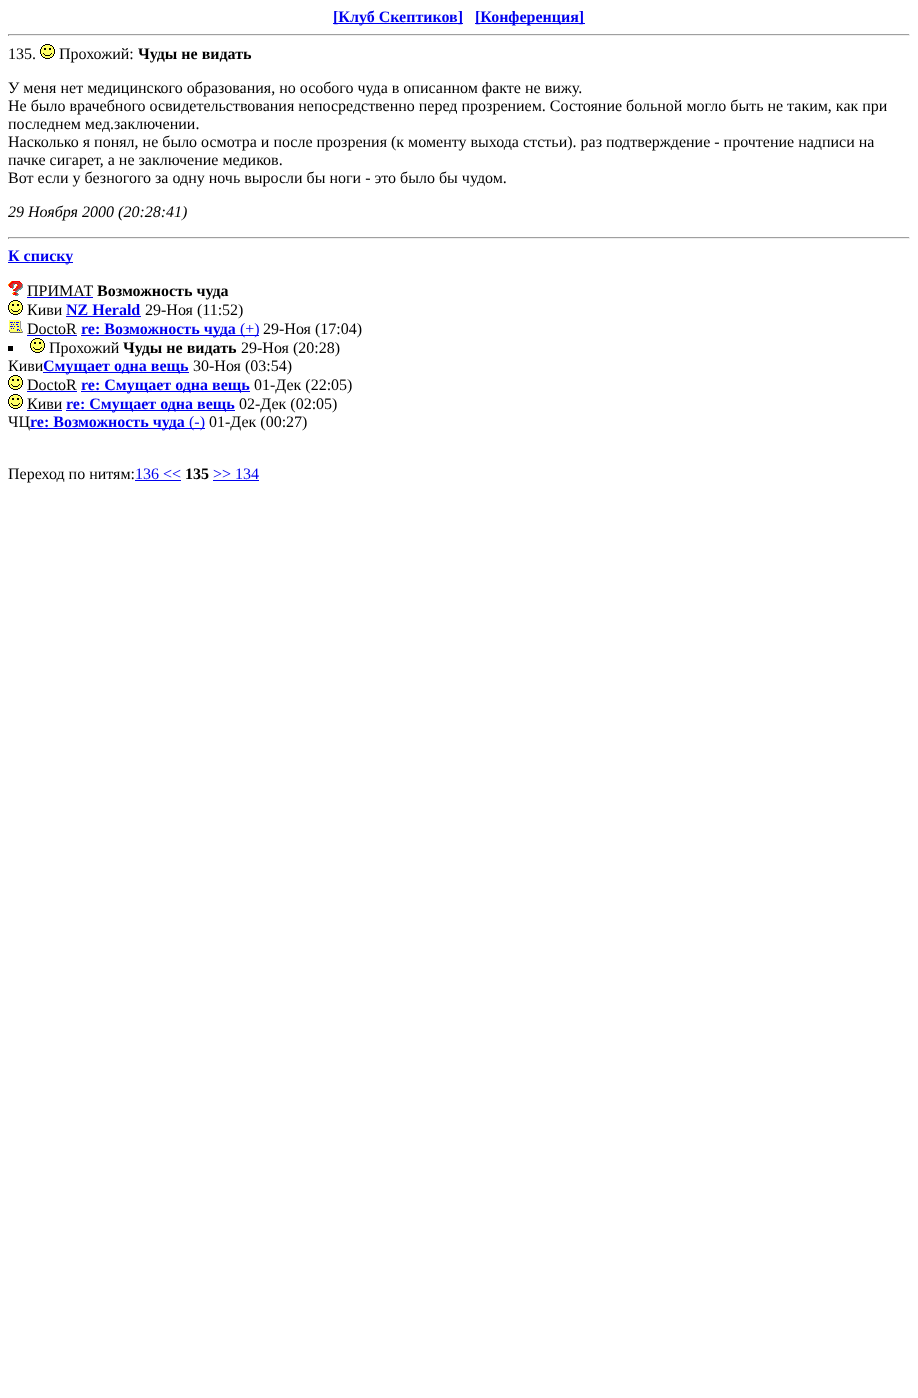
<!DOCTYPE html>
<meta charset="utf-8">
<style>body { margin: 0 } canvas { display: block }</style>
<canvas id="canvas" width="918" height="1398"></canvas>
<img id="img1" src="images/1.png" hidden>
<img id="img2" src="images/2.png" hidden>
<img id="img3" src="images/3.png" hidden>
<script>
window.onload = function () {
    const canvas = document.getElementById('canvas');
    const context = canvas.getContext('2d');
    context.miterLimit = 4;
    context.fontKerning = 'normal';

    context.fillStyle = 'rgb(255, 255, 255)';
    context.fillRect(0, 0, 918, 1398);
    context.fillStyle = 'rgb(0, 0, 238)';
    context.fillRect(333, 23, 130, 1);
    context.fillRect(475, 23, 110, 1);
    context.fillStyle = 'rgb(159, 159, 159)';
    context.fillRect(8, 34, 902, 1);
    context.fillStyle = 'rgb(238, 238, 238)';
    context.fillRect(909, 34, 1, 2);
    context.fillRect(8, 35, 902, 1);
    context.fillStyle = 'rgb(159, 159, 159)';
    context.fillRect(8, 34, 1, 2);
    context.drawImage(document.getElementById('img1'), 40, 44, 15, 15);
    context.fillRect(8, 237, 902, 1);
    context.fillStyle = 'rgb(238, 238, 238)';
    context.fillRect(909, 237, 1, 2);
    context.fillRect(8, 238, 902, 1);
    context.fillStyle = 'rgb(159, 159, 159)';
    context.fillRect(8, 237, 1, 2);
    context.fillStyle = 'rgb(0, 0, 238)';
    context.fillRect(8, 262, 65, 1);
    context.drawImage(document.getElementById('img2'), 8, 281, 15, 15);
    context.fillRect(27, 297, 66, 1);
    context.drawImage(document.getElementById('img1'), 8, 300, 15, 15);
    context.fillRect(66, 316, 75, 1);
    context.drawImage(document.getElementById('img3'), 9, 320, 14, 13);
    context.fillRect(27, 335, 50, 1);
    context.fillRect(81, 335, 178, 1);
    context.fillStyle = 'rgb(0, 0, 0)';
    context.fillRect(8, 346, 5, 5);
    context.drawImage(document.getElementById('img1'), 30, 338, 15, 15);
    context.fillStyle = 'rgb(0, 0, 238)';
    context.fillRect(43, 372, 146, 1);
    context.drawImage(document.getElementById('img1'), 8, 375, 15, 15);
    context.fillRect(27, 391, 50, 1);
    context.fillRect(81, 391, 169, 1);
    context.drawImage(document.getElementById('img1'), 8, 394, 15, 15);
    context.fillRect(27, 410, 35, 1);
    context.fillRect(66, 410, 169, 1);
    context.fillRect(30, 428, 175, 1);
    context.fillRect(135, 480, 46, 1);
    context.fillRect(213, 480, 46, 1);
    context.font = 'bold 16px Liberation Serif';
    context.fillText('[Клуб Скептиков]', 333, 22);
    context.fillText('[Конференция]', 475, 22);
    context.font = '16px Liberation Serif';
    context.fillStyle = 'rgb(0, 0, 0)';
    context.fillText('135.', 8, 59);
    context.fillText('Прохожий:', 59, 59);
    context.font = 'bold 16px Liberation Serif';
    context.fillText('Чуды не видать', 138, 59);
    context.font = '16px Liberation Serif';
    context.fillText('У меня нет медицинского образования, но особого чуда в описанном факте не вижу.', 8, 93);
    context.fillText('Не было врачебного освидетельствования непосредственно перед прозрением. Состояние больной могло быть не таким, как при', 8, 111);
    context.fillText('последнем мед.заключении.', 8, 129);
    context.fillText('Насколько я понял, не было осмотра и после прозрения (к моменту выхода стстьи). раз подтверждение - прочтение надписи на', 8, 147);
    context.fillText('пачке сигарет, а не заключение медиков.', 8, 165);
    context.fillText('Вот если у безногого за одну ночь выросли бы ноги - это было бы чудом.', 8, 183);
    context.font = 'italic 16px Liberation Serif';
    context.fillText('29 Ноября 2000 (20:28:41)', 8, 217);
    context.font = 'bold 16px Liberation Serif';
    context.fillStyle = 'rgb(0, 0, 238)';
    context.fillText('К списку', 8, 261);
    context.font = '16px Liberation Serif';
    context.fillStyle = 'rgb(0, 0, 0)';
    context.fillText('ПРИМАТ', 27, 296);
    context.font = 'bold 16px Liberation Serif';
    context.fillText('Возможность чуда', 97, 296);
    context.font = '16px Liberation Serif';
    context.fillText('Киви', 27, 315);
    context.font = 'bold 16px Liberation Serif';
    context.fillStyle = 'rgb(0, 0, 238)';
    context.fillText('NZ Herald', 66, 315);
    context.font = '16px Liberation Serif';
    context.fillStyle = 'rgb(0, 0, 0)';
    context.fillText('29-Ноя (11:52)', 145, 315);
    context.fillText('DoctoR', 27, 334);
    context.font = 'bold 16px Liberation Serif';
    context.fillStyle = 'rgb(0, 0, 238)';
    context.fillText('re: Возможность чуда', 81, 334);
    context.font = '16px Liberation Serif';
    context.fillText('(+)', 240, 334);
    context.fillStyle = 'rgb(0, 0, 0)';
    context.fillText('29-Ноя (17:04)', 263, 334);
    context.fillText('Прохожий', 49, 353);
    context.font = 'bold 16px Liberation Serif';
    context.fillText('Чуды не видать', 123, 353);
    context.font = '16px Liberation Serif';
    context.fillText('29-Ноя (20:28)', 241, 353);
    context.fillText('Киви', 8, 371);
    context.font = 'bold 16px Liberation Serif';
    context.fillStyle = 'rgb(0, 0, 238)';
    context.fillText('Смущает одна вещь', 43, 371);
    context.font = '16px Liberation Serif';
    context.fillStyle = 'rgb(0, 0, 0)';
    context.fillText('30-Ноя (03:54)', 193, 371);
    context.fillText('DoctoR', 27, 390);
    context.font = 'bold 16px Liberation Serif';
    context.fillStyle = 'rgb(0, 0, 238)';
    context.fillText('re: Смущает одна вещь', 81, 390);
    context.font = '16px Liberation Serif';
    context.fillStyle = 'rgb(0, 0, 0)';
    context.fillText('01-Дек (22:05)', 254, 390);
    context.fillText('Киви', 27, 409);
    context.font = 'bold 16px Liberation Serif';
    context.fillStyle = 'rgb(0, 0, 238)';
    context.fillText('re: Смущает одна вещь', 66, 409);
    context.font = '16px Liberation Serif';
    context.fillStyle = 'rgb(0, 0, 0)';
    context.fillText('02-Дек (02:05)', 239, 409);
    context.fillText('ЧЦ', 8, 427);
    context.font = 'bold 16px Liberation Serif';
    context.fillStyle = 'rgb(0, 0, 238)';
    context.fillText('re: Возможность чуда', 30, 427);
    context.font = '16px Liberation Serif';
    context.fillText('(-)', 189, 427);
    context.fillStyle = 'rgb(0, 0, 0)';
    context.fillText('01-Дек (00:27)', 209, 427);
    context.fillText('Переход по нитям:', 8, 479);
    context.fillStyle = 'rgb(0, 0, 238)';
    context.fillText('136 <<', 135, 479);
    context.font = 'bold 16px Liberation Serif';
    context.fillStyle = 'rgb(0, 0, 0)';
    context.fillText('135', 185, 479);
    context.font = '16px Liberation Serif';
    context.fillStyle = 'rgb(0, 0, 238)';
    context.fillText('>> 134', 213, 479);
};
</script>
